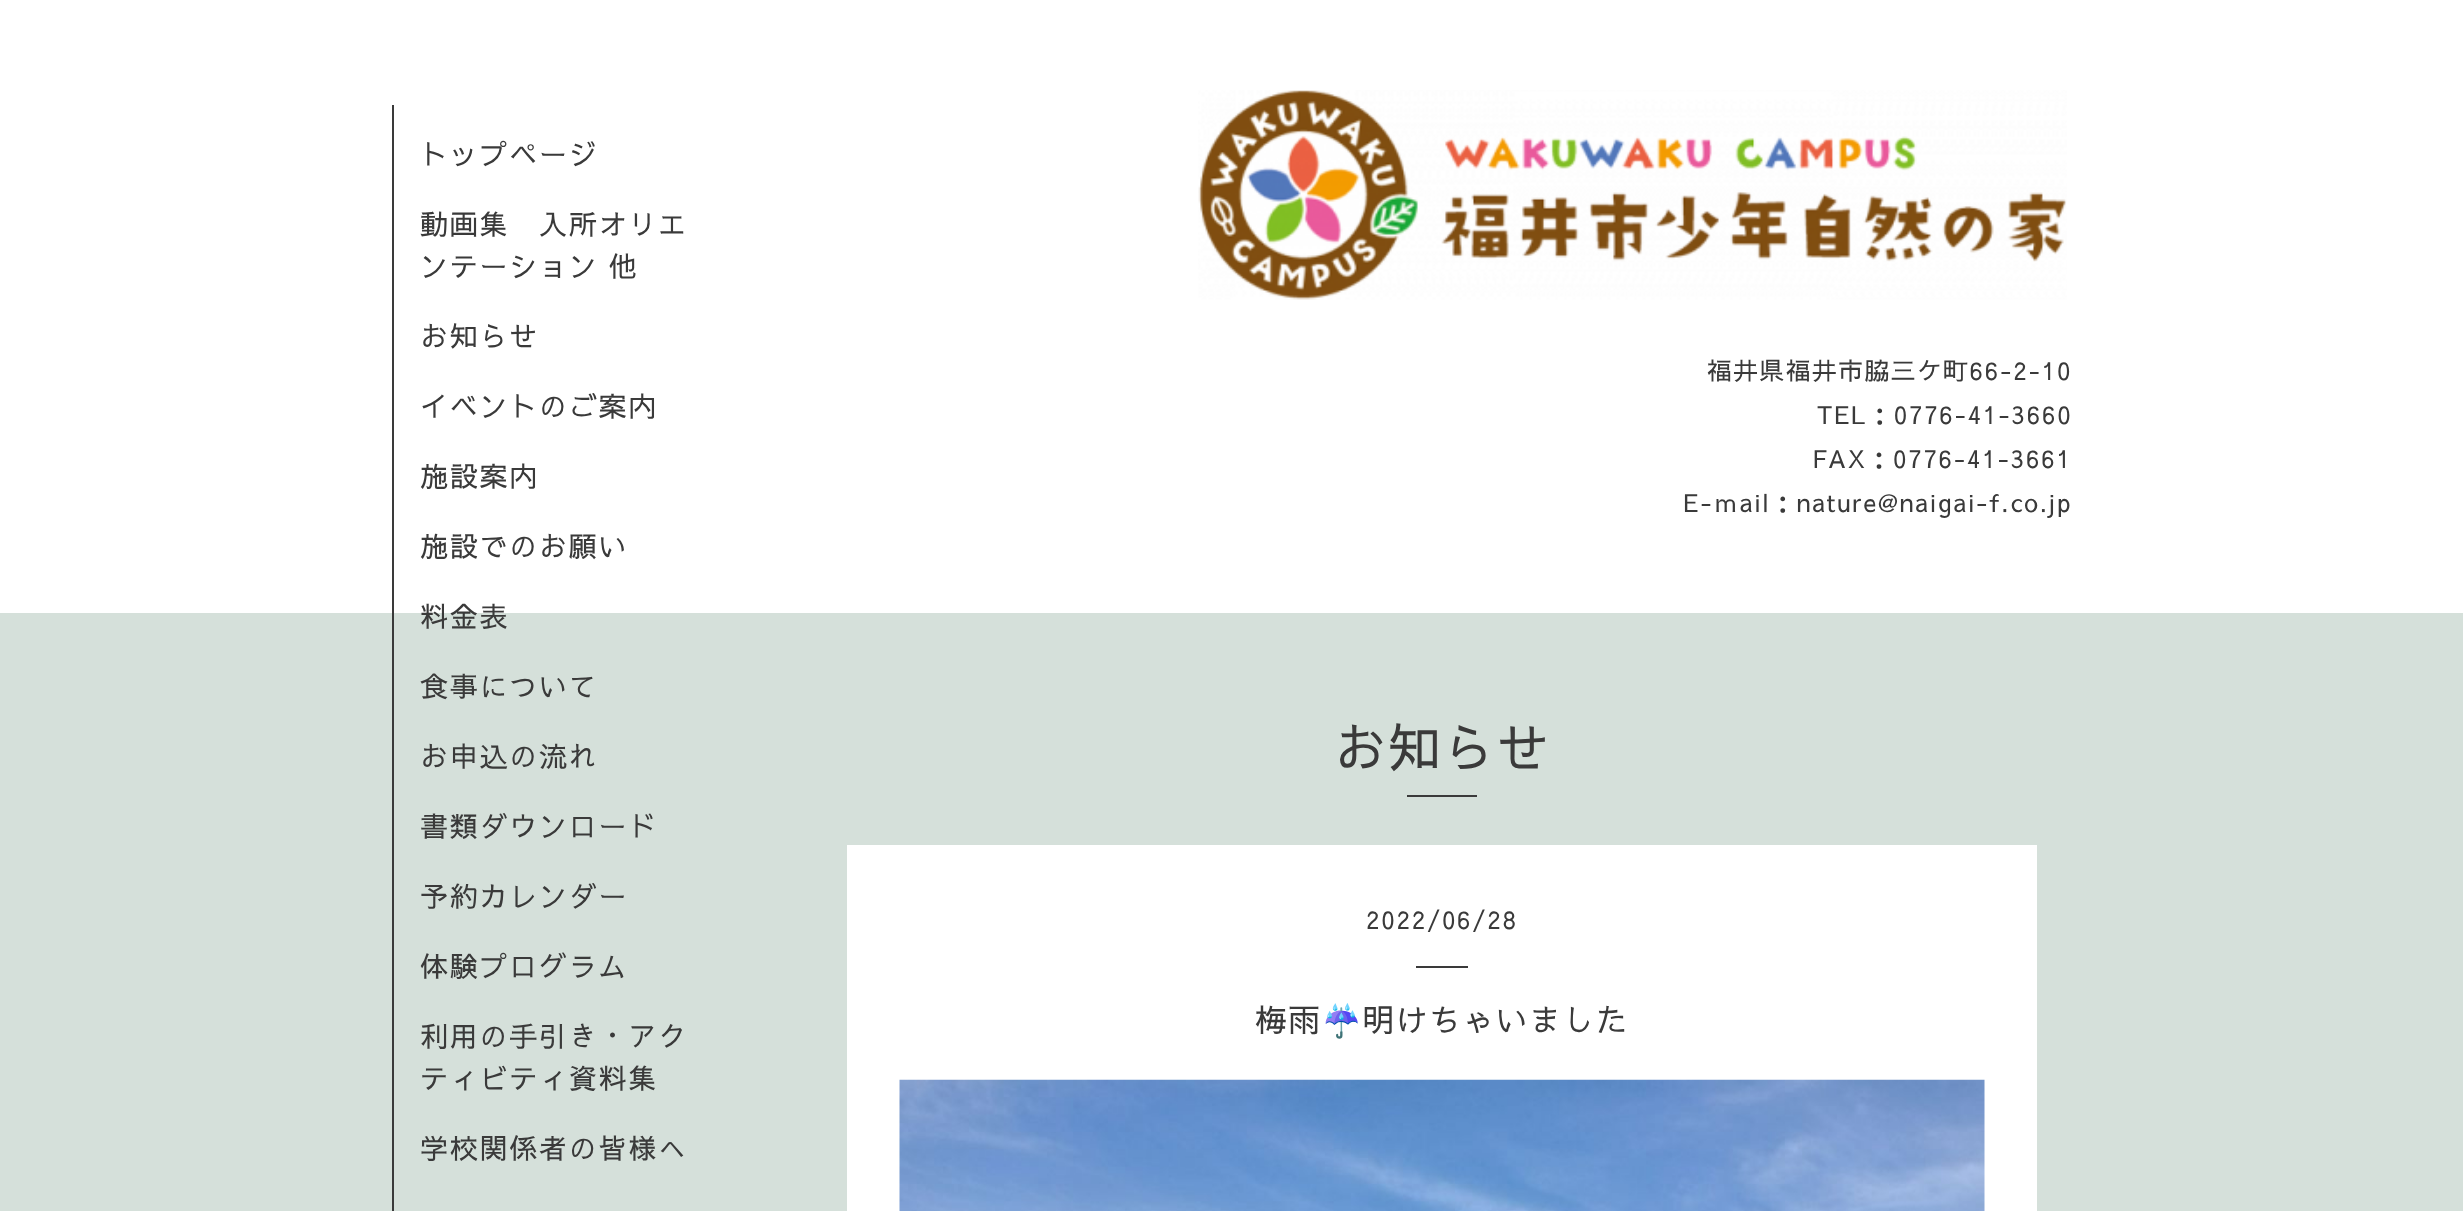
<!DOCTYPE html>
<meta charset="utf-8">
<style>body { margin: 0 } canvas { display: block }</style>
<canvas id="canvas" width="2463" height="1211"></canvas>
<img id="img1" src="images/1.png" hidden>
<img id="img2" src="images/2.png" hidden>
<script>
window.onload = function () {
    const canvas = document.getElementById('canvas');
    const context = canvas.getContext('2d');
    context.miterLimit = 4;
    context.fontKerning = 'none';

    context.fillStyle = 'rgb(255, 255, 255)';
    context.fillRect(0, 0, 2463, 1211);
    context.fillStyle = 'rgb(213, 224, 218)';
    context.fillRect(0, 613, 2463, 598);
    context.fillStyle = 'rgb(58, 58, 58)';
    context.fillRect(392, 105, 2, 1106);
    context.drawImage(document.getElementById('img1'), 1198, 90, 869, 210);
    context.fillRect(1407, 795, 70, 2);
    context.fillStyle = 'rgb(255, 255, 255)';
    context.fillRect(847, 845, 1190, 366);
    context.fillStyle = 'rgb(58, 58, 58)';
    context.fillRect(1416, 966, 52, 2);
    context.drawImage(document.getElementById('img2'), 899, 1079, 1086, 132);
    context.letterSpacing = '1.75px';
    context.font = '28px Sawarabi Gothic';
    context.fillText('トップページ', 420, 165);
    context.fillText('動画集　入所オリエ', 420, 235);
    context.fillText('ンテーション 他', 420, 277);
    context.fillText('お知らせ', 420, 347);
    context.fillText('イベントのご案内', 420, 417);
    context.fillText('施設案内', 420, 487);
    context.fillText('施設でのお願い', 420, 557);
    context.fillText('料金表', 420, 627);
    context.fillText('食事について', 420, 697);
    context.fillText('お申込の流れ', 420, 767);
    context.fillText('書類ダウンロード', 420, 837);
    context.fillText('予約カレンダー', 420, 907);
    context.fillText('体験プログラム', 420, 977);
    context.fillText('利用の手引き・アク', 420, 1047);
    context.fillText('ティビティ資料集', 420, 1089);
    context.fillText('学校関係者の皆様へ', 420, 1159);
    context.font = '24.5px Sawarabi Gothic';
    context.fillText('福井県福井市脇三ケ町66-2-10', 1707, 380);
    context.fillText('TEL：0776-41-3660', 1817, 424);
    context.fillText('FAX：0776-41-3661', 1812, 468);
    context.fillText('E-ｍail：nature@naigai-f.co.jp', 1683, 512);
    context.font = '52.5px Sawarabi Gothic';
    context.fillText('お知らせ', 1334, 768);
    context.font = '24.5px Sawarabi Gothic';
    context.fillText('2022/06/28', 1366, 929);
    context.font = '31.5px Sawarabi Gothic';
    context.fillText('梅雨', 1255, 1032);
    context.font = '31.5px Noto Color Emoji';
    context.fillText('☔', 1322, 1032);
    context.font = '31.5px Sawarabi Gothic';
    context.fillText('明けちゃいました', 1363, 1032);
};
</script>
